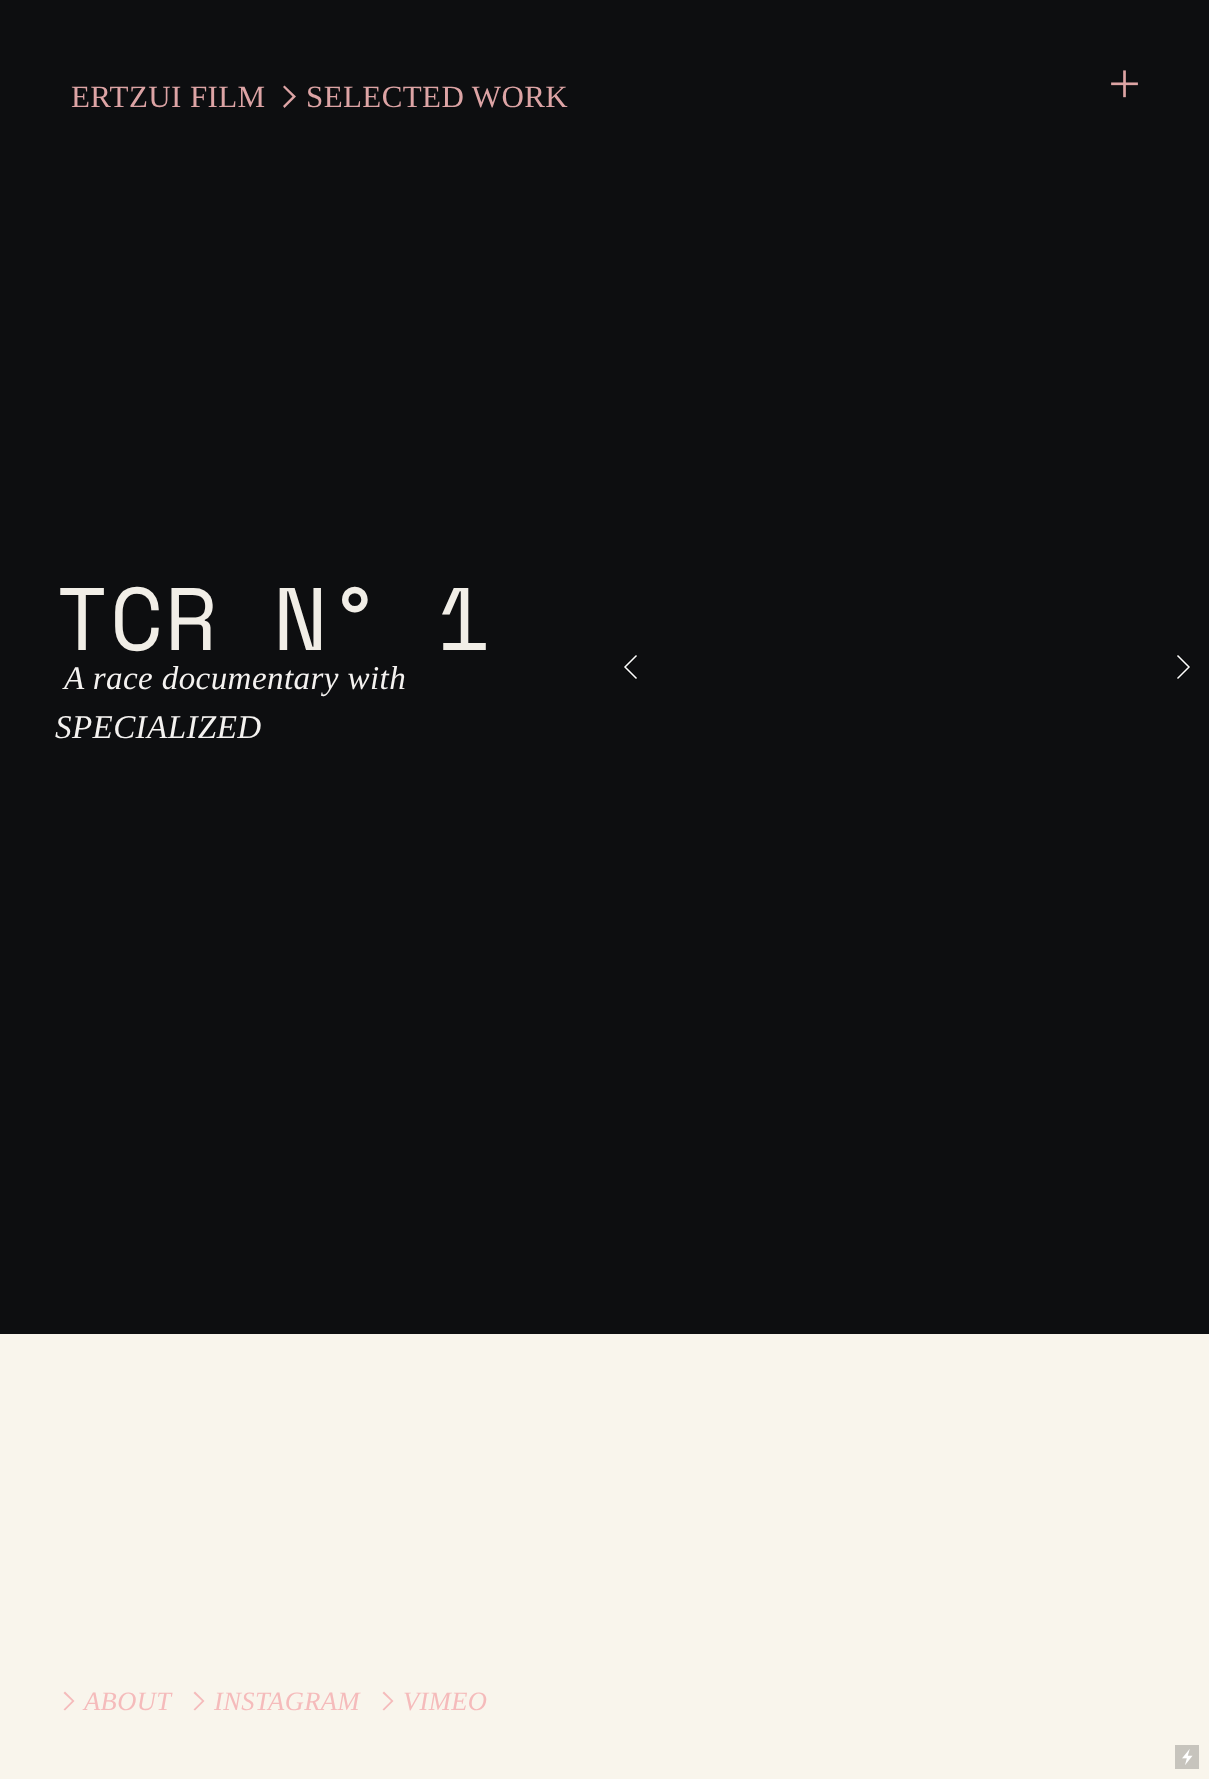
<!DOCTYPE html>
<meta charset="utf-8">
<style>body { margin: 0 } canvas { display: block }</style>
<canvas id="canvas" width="1209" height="1779"></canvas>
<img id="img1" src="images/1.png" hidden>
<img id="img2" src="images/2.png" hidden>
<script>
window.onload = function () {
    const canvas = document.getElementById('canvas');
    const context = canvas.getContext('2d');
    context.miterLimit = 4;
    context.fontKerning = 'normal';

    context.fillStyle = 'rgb(249, 245, 236)';
    context.fillRect(0, 0, 1209, 1779);
    context.fillStyle = 'rgb(13, 14, 16)';
    context.fillRect(0, 0, 1209, 1334);
    context.fillStyle = 'rgb(221, 164, 165)';
    context.beginPath();
    context.moveTo(296, 96.5);
    context.lineTo(284.5, 85.5);
    context.lineTo(283, 87);
    context.lineTo(292.5, 96.5);
    context.lineTo(283, 106);
    context.lineTo(284.5, 108);
    context.closePath();
    context.fill();
    context.beginPath();
    context.moveTo(636, 678);
    context.lineTo(625, 667);
    context.lineTo(636, 656);
    context.strokeStyle = 'rgb(5, 6, 6)';
    context.lineWidth = 2.5;
    context.lineCap = 'square';
    context.stroke();
    context.beginPath();
    context.moveTo(636, 678);
    context.lineTo(625, 667);
    context.lineTo(636, 656);
    context.strokeStyle = 'rgb(255, 255, 255)';
    context.lineWidth = 1.5;
    context.stroke();
    context.beginPath();
    context.moveTo(1178, 678);
    context.lineTo(1189, 667);
    context.lineTo(1178, 656);
    context.strokeStyle = 'rgb(5, 6, 6)';
    context.lineWidth = 2.5;
    context.stroke();
    context.beginPath();
    context.moveTo(1178, 678);
    context.lineTo(1189, 667);
    context.lineTo(1178, 656);
    context.strokeStyle = 'rgb(255, 255, 255)';
    context.lineWidth = 1.5;
    context.stroke();
    context.fillStyle = 'rgb(245, 187, 187)';
    context.beginPath();
    context.moveTo(74.5, 1701);
    context.lineTo(65, 1691.5);
    context.lineTo(63.5, 1693);
    context.lineTo(72, 1701);
    context.lineTo(63.5, 1709.5);
    context.lineTo(65, 1710.5);
    context.closePath();
    context.fill();
    context.beginPath();
    context.moveTo(204.5, 1701);
    context.lineTo(195, 1691.5);
    context.lineTo(193.5, 1693);
    context.lineTo(202, 1701);
    context.lineTo(193.5, 1709.5);
    context.lineTo(195, 1710.5);
    context.closePath();
    context.fill();
    context.beginPath();
    context.moveTo(393.5, 1701);
    context.lineTo(384, 1691.5);
    context.lineTo(382.5, 1693);
    context.lineTo(391, 1701);
    context.lineTo(382.5, 1709.5);
    context.lineTo(384, 1710.5);
    context.closePath();
    context.fill();
    context.drawImage(document.getElementById('img1'), 1111, 70, 27, 28);
    context.fillStyle = 'rgb(199, 196, 189)';
    context.fillRect(1175, 1745, 24, 24);
    context.drawImage(document.getElementById('img2'), 1182, 1749, 11, 16);
    context.letterSpacing = '0.4px';
    context.font = '31px Liberation Serif';
    context.fillStyle = 'rgb(221, 164, 165)';
    context.fillText('ERTZUI FILM', 71, 107);
    context.fillText('SELECTED WORK', 306, 107);
    context.font = '88.5px Space Mono';
    context.fillStyle = 'rgb(241, 238, 231)';
    context.fillText('TCR N° 1', 55, 650);
    context.font = 'italic 33.1px Liberation Serif';
    context.fillStyle = 'rgb(244, 242, 240)';
    context.fillText('A race documentary with', 64, 689);
    context.fillText('SPECIALIZED', 55, 738);
    context.font = 'italic 26.5px Liberation Serif';
    context.fillStyle = 'rgb(245, 187, 187)';
    context.fillText('ABOUT', 84, 1710);
    context.fillText('INSTAGRAM', 214, 1710);
    context.fillText('VIMEO', 403, 1710);
};
</script>
